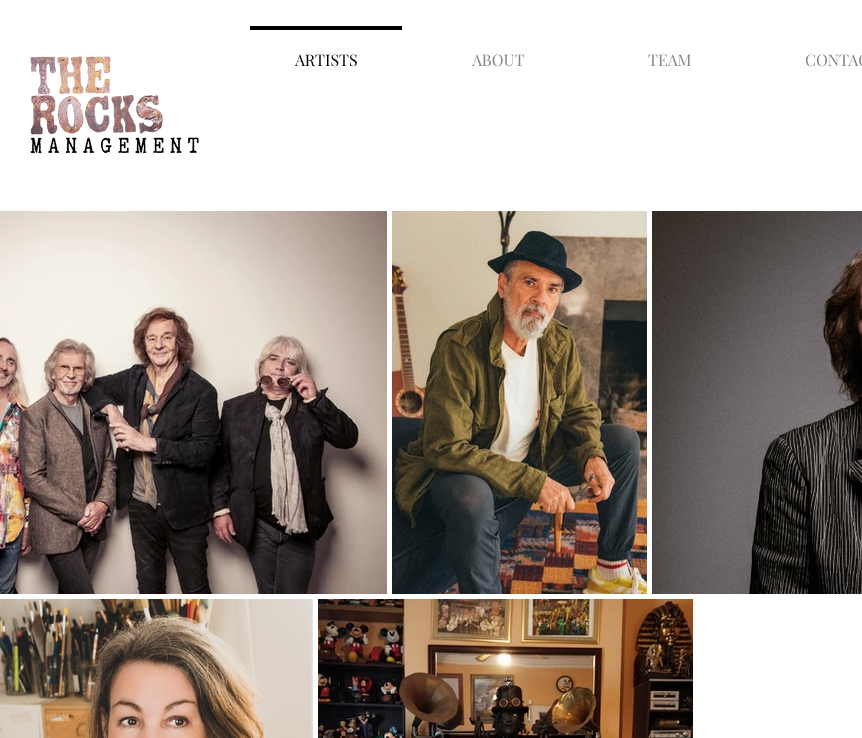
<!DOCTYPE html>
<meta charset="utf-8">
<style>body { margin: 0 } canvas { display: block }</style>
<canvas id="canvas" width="862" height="738"></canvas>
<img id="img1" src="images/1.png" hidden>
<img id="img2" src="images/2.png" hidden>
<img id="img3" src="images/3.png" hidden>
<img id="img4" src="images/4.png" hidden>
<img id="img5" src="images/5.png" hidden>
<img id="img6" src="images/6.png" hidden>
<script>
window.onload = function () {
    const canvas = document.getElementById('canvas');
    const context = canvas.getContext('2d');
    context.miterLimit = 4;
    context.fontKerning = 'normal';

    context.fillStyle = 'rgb(255, 255, 255)';
    context.fillRect(0, 0, 862, 738);
    context.drawImage(document.getElementById('img1'), 30, 56, 169, 98);
    context.fillStyle = 'rgb(0, 0, 0)';
    context.fillRect(250, 26, 152, 4);
    context.drawImage(document.getElementById('img2'), 0, 211, 387, 383);
    context.drawImage(document.getElementById('img3'), 392, 211, 255, 383);
    context.drawImage(document.getElementById('img4'), 652, 211, 210, 383);
    context.drawImage(document.getElementById('img5'), 0, 599, 313, 139);
    context.drawImage(document.getElementById('img6'), 318, 599, 375, 139);
    context.font = '16px Playfair Display';
    context.fillText('ARTISTS', 295, 66);
    context.fillStyle = 'rgb(133, 133, 133)';
    context.fillText('ABOUT', 472, 66);
    context.fillText('TEAM', 648, 66);
    context.fillText('CONTAC', 805, 66);
};
</script>
